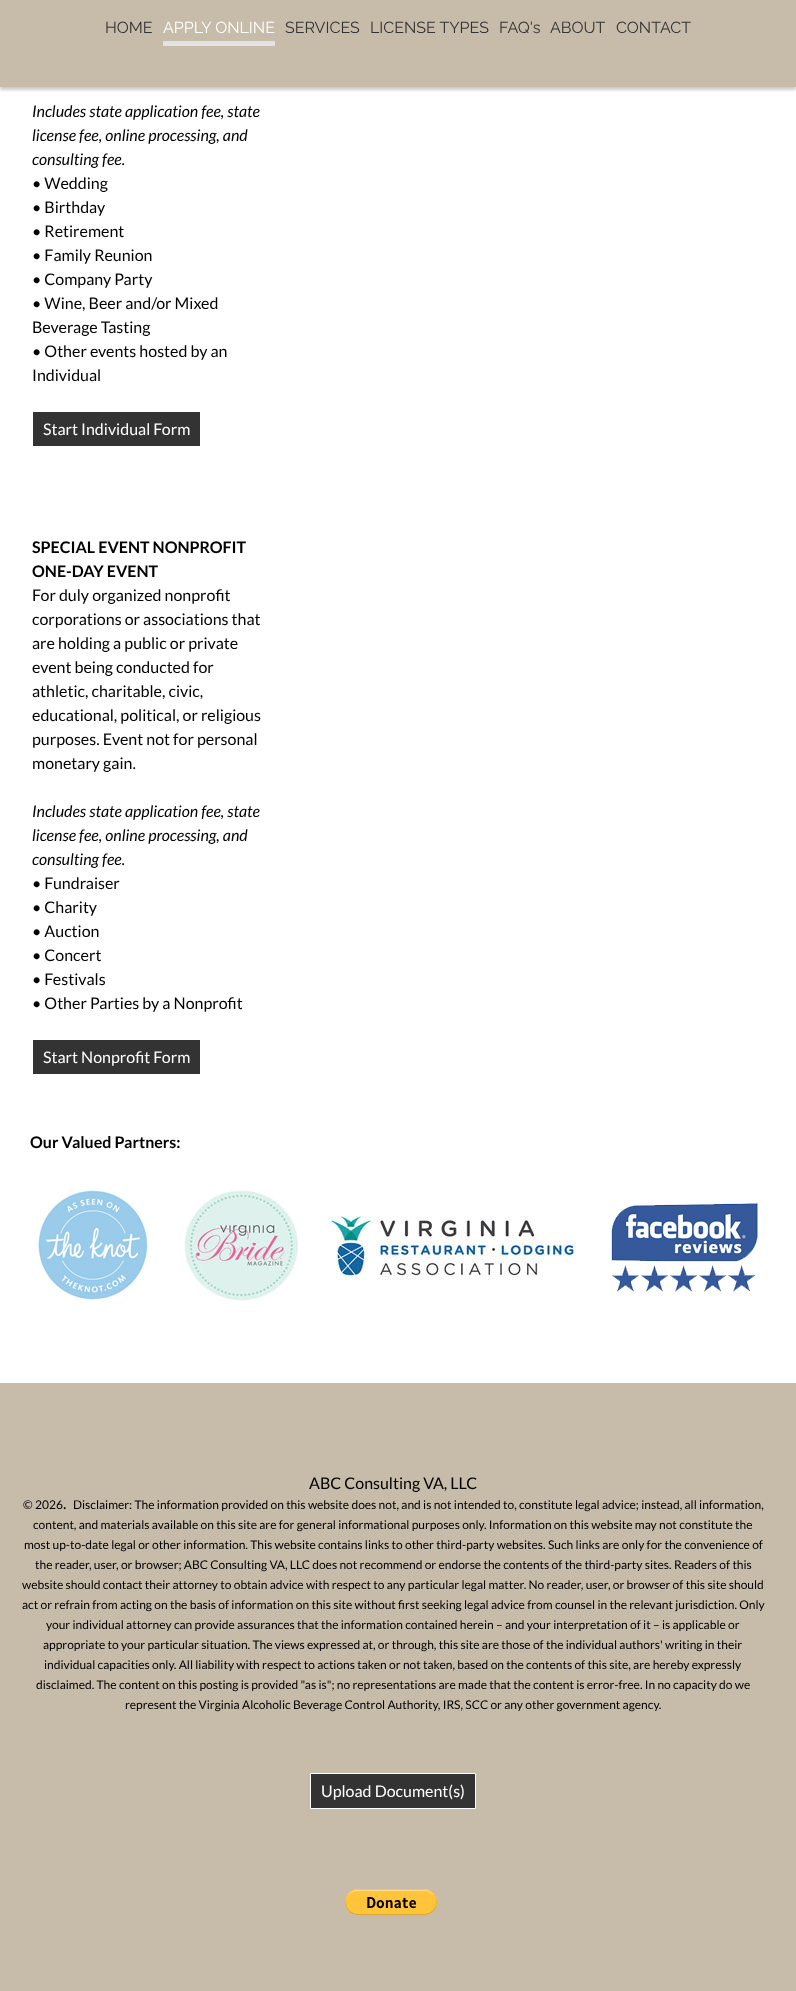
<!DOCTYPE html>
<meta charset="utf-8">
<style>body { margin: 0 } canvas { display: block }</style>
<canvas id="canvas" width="796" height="1991"></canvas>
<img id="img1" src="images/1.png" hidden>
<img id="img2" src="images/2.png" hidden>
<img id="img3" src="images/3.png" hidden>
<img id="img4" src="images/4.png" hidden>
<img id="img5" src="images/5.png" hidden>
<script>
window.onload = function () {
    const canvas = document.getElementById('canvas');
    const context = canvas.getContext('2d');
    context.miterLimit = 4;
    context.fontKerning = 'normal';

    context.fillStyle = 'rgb(255, 255, 255)';
    context.fillRect(0, 0, 796, 1991);
    context.fillStyle = 'rgba(0, 0, 0, 0.2)';
    context.filter = 'blur(1.5px)';
    context.beginPath();
    context.rect(0, 3, 796, 87);
    context.fill();
    context.filter = 'none';
    context.fillStyle = 'rgb(199, 187, 169)';
    context.fillRect(0, 0, 796, 87);
    context.fillStyle = 'rgb(227, 227, 227)';
    context.fillRect(163, 41, 112, 5);
    context.fillStyle = 'rgb(51, 51, 51)';
    context.fillRect(33, 412, 167, 34);
    context.fillRect(33, 1040, 167, 34);
    context.drawImage(document.getElementById('img1'), 38, 1184, 112, 119);
    context.drawImage(document.getElementById('img2'), 184, 1189, 115, 112);
    context.drawImage(document.getElementById('img3'), 328, 1216, 248, 64);
    context.drawImage(document.getElementById('img4'), 611, 1203, 147, 89);
    context.fillStyle = 'rgb(199, 187, 169)';
    context.fillRect(0, 1383, 796, 608);
    context.fillStyle = 'rgb(51, 51, 51)';
    context.beginPath();
    context.rect(310.5, 1773.5, 165, 35);
    context.fill();
    context.strokeStyle = 'rgb(255, 255, 255)';
    context.stroke();
    context.drawImage(document.getElementById('img5'), 345, 1889, 92, 26);
    context.font = '16px Raleway';
    context.fillText('HOME', 105, 33);
    context.fillStyle = 'rgb(255, 255, 255)';
    context.fillText('APPLY ONLINE', 163, 33);
    context.fillStyle = 'rgb(51, 51, 51)';
    context.fillText('SERVICES', 285, 33);
    context.fillText('LICENSE TYPES', 370, 33);
    context.fillText('FAQ\'s', 499, 33);
    context.fillText('ABOUT', 550, 33);
    context.fillText('CONTACT', 616, 33);
    context.font = 'italic 16px Lato';
    context.fillStyle = 'rgb(0, 0, 0)';
    context.fillText('Includes state application fee, state', 32, 117);
    context.fillText('license fee, online processing, and', 32, 141);
    context.fillText('consulting fee.', 32, 165);
    context.font = '16px Lato';
    context.fillText('• Wedding', 32, 189);
    context.fillText('• Birthday', 32, 213);
    context.fillText('• Retirement', 32, 237);
    context.fillText('• Family Reunion', 32, 261);
    context.fillText('• Company Party', 32, 285);
    context.fillText('• Wine, Beer and/or Mixed', 32, 309);
    context.fillText('Beverage Tasting', 32, 333);
    context.fillText('• Other events hosted by an', 32, 357);
    context.fillText('Individual', 32, 381);
    context.fillStyle = 'rgb(255, 255, 255)';
    context.fillText('Start Individual Form', 43, 435);
    context.font = 'bold 16px Lato';
    context.fillStyle = 'rgb(0, 0, 0)';
    context.fillText('SPECIAL EVENT NONPROFIT', 32, 553);
    context.fillText('ONE-DAY EVENT', 32, 577);
    context.font = '16px Lato';
    context.fillText('For duly organized nonprofit', 32, 601);
    context.fillText('corporations or associations that', 32, 625);
    context.fillText('are holding a public or private', 32, 649);
    context.fillText('event being conducted for', 32, 673);
    context.fillText('athletic, charitable, civic,', 32, 697);
    context.fillText('educational, political, or religious', 32, 721);
    context.fillText('purposes. Event not for personal', 32, 745);
    context.fillText('monetary gain.', 32, 769);
    context.font = 'italic 16px Lato';
    context.fillText('Includes state application fee, state', 32, 817);
    context.fillText('license fee, online processing, and', 32, 841);
    context.fillText('consulting fee.', 32, 865);
    context.font = '16px Lato';
    context.fillText('• Fundraiser', 32, 889);
    context.fillText('• Charity', 32, 913);
    context.fillText('• Auction', 32, 937);
    context.fillText('• Concert', 32, 961);
    context.fillText('• Festivals', 32, 985);
    context.fillText('• Other Parties by a Nonprofit', 32, 1009);
    context.fillStyle = 'rgb(255, 255, 255)';
    context.fillText('Start Nonprofit Form', 43, 1063);
    context.font = 'bold 16px Lato';
    context.fillStyle = 'rgb(0, 0, 0)';
    context.fillText('Our Valued Partners:', 30, 1148);
    context.font = '16px Lato';
    context.fillText('ABC Consulting VA, LLC', 309, 1489);
    context.font = '12px Lato';
    context.fillText('©', 23, 1509);
    context.fillText('2026', 35, 1509);
    context.font = '16px Lato';
    context.fillText('.', 63, 1509);
    context.font = '12px Lato';
    context.fillText('Disclaimer: The information provided on this website does not, and is not intended to, constitute legal advice; instead, all information,', 73, 1509);
    context.fillText('content, and materials available on this site are for general informational purposes only. Information on this website may not constitute the', 33, 1529);
    context.fillText('most up-to-date legal or other information. This website contains links to other third-party websites. Such links are only for the convenience of', 24, 1549);
    context.fillText('the reader, user, or browser; ABC Consulting VA, LLC does not recommend or endorse the contents of the third-party sites. Readers of this', 35, 1569);
    context.fillText('website should contact their attorney to obtain advice with respect to any particular legal matter. No reader, user, or browser of this site should', 22, 1589);
    context.fillText('act or refrain from acting on the basis of information on this site without first seeking legal advice from counsel in the relevant jurisdiction. Only', 22, 1609);
    context.fillText('your individual attorney can provide assurances that the information contained herein – and your interpretation of it – is applicable or', 46, 1629);
    context.fillText('appropriate to your particular situation. The views expressed at, or through, this site are those of the individual authors\' writing in their', 43, 1649);
    context.fillText('individual capacities only. All liability with respect to actions taken or not taken, based on the contents of this site, are hereby expressly', 44, 1669);
    context.fillText('disclaimed. The content on this posting is provided "as is"; no representations are made that the content is error-free. In no capacity do we', 36, 1689);
    context.fillText('represent the Virginia Alcoholic Beverage Control Authority, IRS, SCC or any other government agency.', 125, 1709);
    context.font = '16px Lato';
    context.fillStyle = 'rgb(255, 255, 255)';
    context.fillText('Upload Document(s)', 321, 1797);
};
</script>
